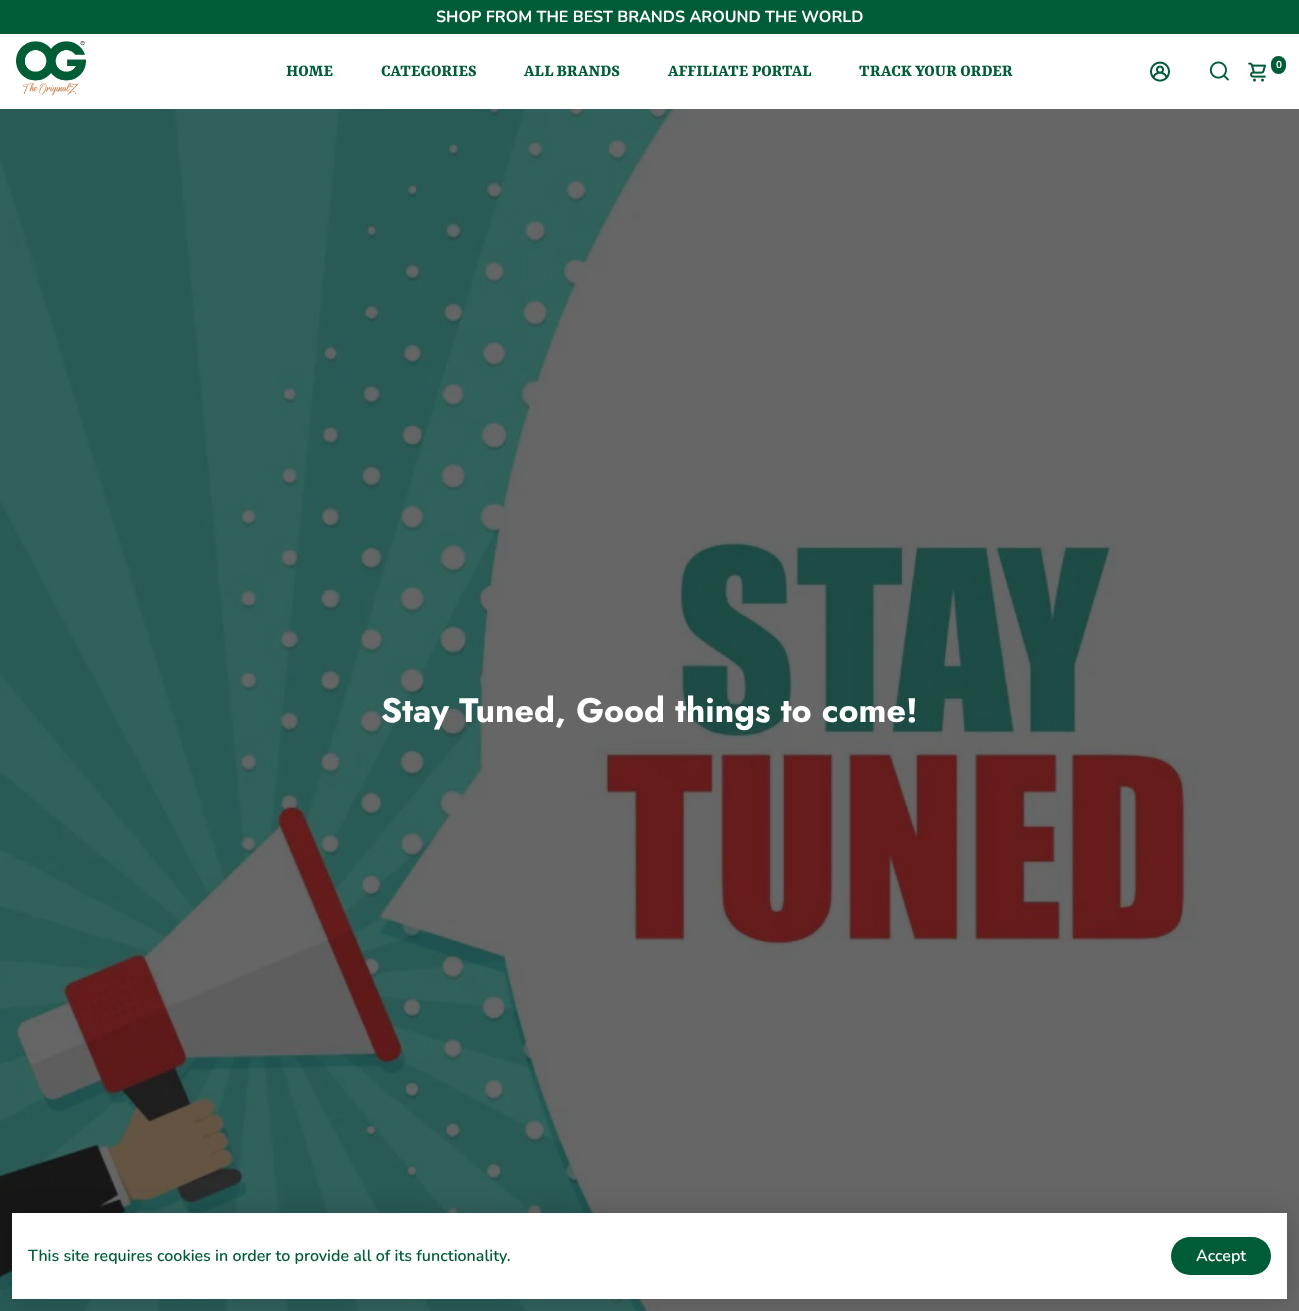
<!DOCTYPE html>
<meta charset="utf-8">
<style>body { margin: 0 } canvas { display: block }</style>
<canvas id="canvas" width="1299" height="1311"></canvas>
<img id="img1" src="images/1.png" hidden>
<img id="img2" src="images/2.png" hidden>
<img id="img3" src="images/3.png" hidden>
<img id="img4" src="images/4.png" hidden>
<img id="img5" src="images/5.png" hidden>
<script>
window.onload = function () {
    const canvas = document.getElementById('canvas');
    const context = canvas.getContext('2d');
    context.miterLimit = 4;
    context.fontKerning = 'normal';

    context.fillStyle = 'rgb(255, 255, 255)';
    context.fillRect(0, 0, 1299, 1311);
    context.fillStyle = 'rgb(0, 92, 55)';
    context.fillRect(0, 0, 1299, 34);
    context.drawImage(document.getElementById('img1'), 16, 41, 70, 55);
    context.drawImage(document.getElementById('img2'), 1150, 61, 20, 21);
    context.drawImage(document.getElementById('img3'), 1209, 61, 20, 20);
    context.drawImage(document.getElementById('img4'), 1248, 62, 18, 20);
    context.beginPath();
    context.roundRect(1271, 56, 15, 18, 7.5);
    context.fill();
    context.drawImage(document.getElementById('img5'), 0, 109, 1299, 1202);
    context.fillStyle = 'rgba(0, 0, 0, 0.16)';
    context.filter = 'blur(12px)';
    context.beginPath();
    context.rect(12, 1213, 1275, 86);
    context.fill();
    context.filter = 'none';
    context.fillStyle = 'rgb(255, 255, 255)';
    context.fillRect(12, 1213, 1275, 86);
    context.fillStyle = 'rgb(0, 92, 55)';
    context.beginPath();
    context.roundRect(1171, 1237, 100, 38, 19);
    context.fill();
    context.font = 'bold 16px Nunito';
    context.fillStyle = 'rgb(255, 255, 255)';
    context.fillText('SHOP FROM THE BEST BRANDS AROUND THE WORLD', 436, 22);
    context.font = 'bold 18px Rasa';
    context.fillStyle = 'rgb(0, 92, 55)';
    context.fillText('HOME', 286, 76);
    context.fillText('CATEGORIES', 381, 76);
    context.fillText('ALL BRANDS', 524, 76);
    context.fillText('AFFILIATE PORTAL', 668, 76);
    context.fillText('TRACK YOUR ORDER', 859, 76);
    context.font = 'bold 10px Nunito';
    context.fillStyle = 'rgb(255, 255, 255)';
    context.fillText('0', 1276, 68);
    context.font = 'bold 34px Jost';
    context.fillText('Stay Tuned, Good things to come!', 381, 722);
    context.font = '600 16px Nunito';
    context.fillStyle = 'rgb(0, 92, 55)';
    context.fillText('This site requires cookies in order to provide all of its functionality.', 28, 1261);
    context.fillStyle = 'rgb(255, 255, 255)';
    context.fillText('Accept', 1196, 1261);
};
</script>
